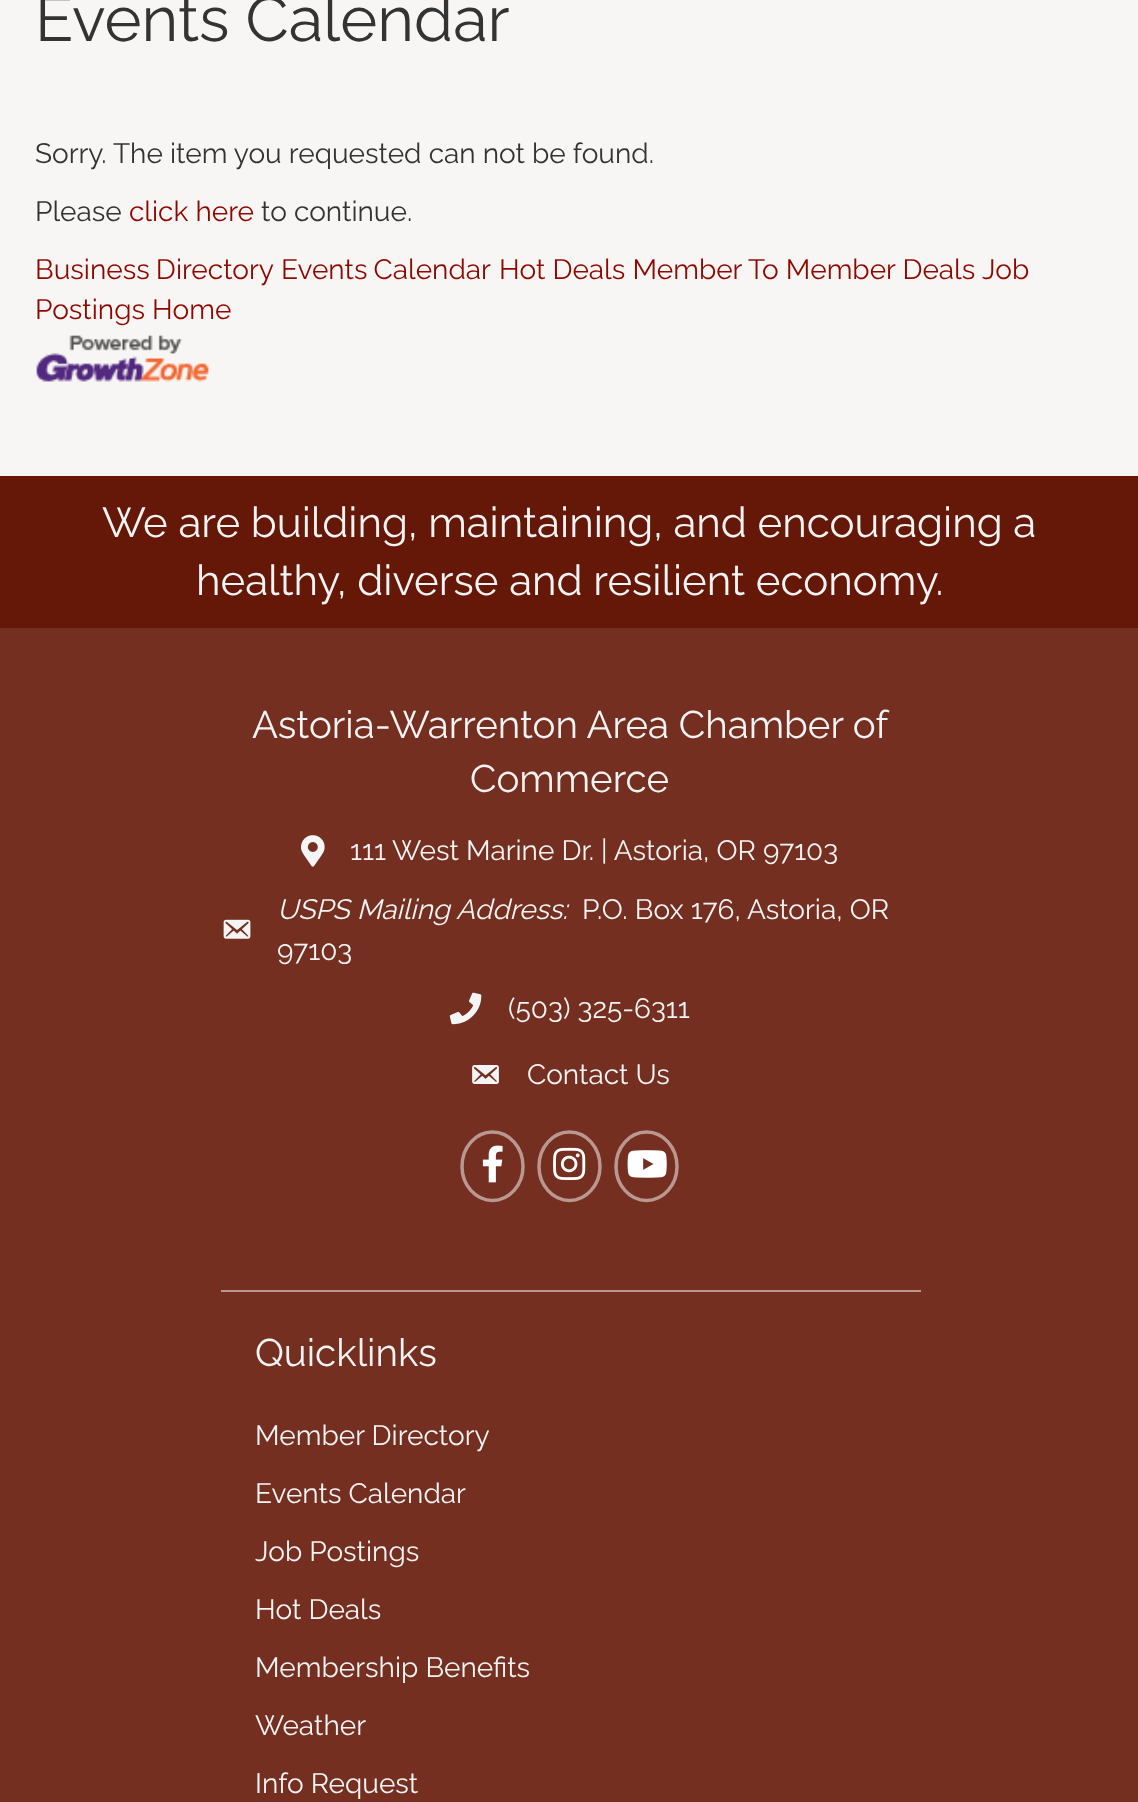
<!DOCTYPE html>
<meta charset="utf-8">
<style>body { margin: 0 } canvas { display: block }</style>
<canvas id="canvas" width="1138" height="1802"></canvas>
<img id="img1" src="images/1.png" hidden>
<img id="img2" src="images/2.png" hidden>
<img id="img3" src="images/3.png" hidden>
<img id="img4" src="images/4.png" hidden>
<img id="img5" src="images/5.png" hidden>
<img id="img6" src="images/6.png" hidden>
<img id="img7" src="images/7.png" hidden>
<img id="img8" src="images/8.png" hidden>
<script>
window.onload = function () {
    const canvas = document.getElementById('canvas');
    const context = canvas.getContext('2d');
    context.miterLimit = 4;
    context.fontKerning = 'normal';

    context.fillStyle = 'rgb(248, 246, 244)';
    context.fillRect(0, 0, 1138, 1802);
    context.drawImage(document.getElementById('img1'), 36, 335, 173, 47);
    context.fillStyle = 'rgb(101, 24, 7)';
    context.fillRect(0, 476, 1138, 152);
    context.fillStyle = 'rgb(116, 47, 32)';
    context.fillRect(0, 628, 1138, 1174);
    context.drawImage(document.getElementById('img2'), 301, 835, 24, 32);
    context.drawImage(document.getElementById('img3'), 223, 919, 28, 20);
    context.drawImage(document.getElementById('img4'), 449, 992, 33, 33);
    context.drawImage(document.getElementById('img5'), 472, 1065, 27, 19);
    context.beginPath();
    context.moveTo(492.5, 1132);
    context.bezierCurveTo(509.5, 1132, 523, 1147.5, 523, 1166.5);
    context.bezierCurveTo(523, 1185, 509.5, 1200.5, 492.5, 1200.5);
    context.bezierCurveTo(475.5, 1200.5, 462, 1185, 462, 1166.5);
    context.bezierCurveTo(462, 1147.5, 475.5, 1132, 492.5, 1132);
    context.closePath();
    context.strokeStyle = 'rgb(186, 151, 144)';
    context.lineWidth = 3.5;
    context.stroke();
    context.drawImage(document.getElementById('img6'), 482, 1145, 21, 38);
    context.beginPath();
    context.moveTo(569.5, 1132);
    context.bezierCurveTo(586.5, 1132, 600, 1147.5, 600, 1166.5);
    context.bezierCurveTo(600, 1185, 586.5, 1200.5, 569.5, 1200.5);
    context.bezierCurveTo(552.5, 1200.5, 539, 1185, 539, 1166.5);
    context.bezierCurveTo(539, 1147.5, 552.5, 1132, 569.5, 1132);
    context.closePath();
    context.stroke();
    context.drawImage(document.getElementById('img7'), 553, 1147, 33, 34);
    context.beginPath();
    context.moveTo(646.5, 1132);
    context.bezierCurveTo(663.5, 1132, 677, 1147.5, 677, 1166.5);
    context.bezierCurveTo(677, 1185, 663.5, 1200.5, 646.5, 1200.5);
    context.bezierCurveTo(629.5, 1200.5, 616, 1185, 616, 1166.5);
    context.bezierCurveTo(616, 1147.5, 629.5, 1132, 646.5, 1132);
    context.closePath();
    context.stroke();
    context.drawImage(document.getElementById('img8'), 627, 1150, 40, 28);
    context.fillStyle = 'rgb(186, 151, 144)';
    context.fillRect(221, 1290, 700, 2);
    context.font = '63px Raleway';
    context.fillStyle = 'rgb(51, 51, 51)';
    context.fillText('Events Calendar', 35, 41);
    context.font = '28px Raleway';
    context.fillText('Sorry.', 35, 163);
    context.fillText('The item you requested can not be found.', 113, 163);
    context.fillText('Please', 35, 221);
    context.fillStyle = 'rgb(143, 8, 0)';
    context.fillText('click here', 129, 221);
    context.fillStyle = 'rgb(51, 51, 51)';
    context.fillText('to continue.', 261, 221);
    context.wordSpacing = '-1px';
    context.fillStyle = 'rgb(143, 8, 0)';
    context.fillText('Business Directory', 35, 279);
    context.fillText('Events Calendar', 281, 279);
    context.wordSpacing = '0px';
    context.fillText('Hot Deals Member To Member Deals', 499, 279);
    context.fillText('Job', 982, 279);
    context.fillText('Postings Home', 35, 319);
    context.font = '42px Raleway';
    context.fillStyle = 'rgb(243, 243, 243)';
    context.fillText('We are building, maintaining, and encouraging a', 102, 537);
    context.fillText('healthy, diverse and resilient economy.', 196, 595);
    context.font = '38.5px Raleway';
    context.fillText('Astoria-Warrenton Area Chamber of', 252, 738);
    context.fillText('Commerce', 470, 792);
    context.font = '28px Raleway';
    context.fillText('111 West Marine Dr. | Astoria, OR 97103', 350, 860);
    context.font = 'italic 28px Raleway';
    context.fillText('USPS Mailing Address:', 277, 919);
    context.font = '28px Raleway';
    context.fillText('P.O. Box 176, Astoria, OR', 582, 919);
    context.fillText('97103', 277, 960);
    context.fillText('(503) 325-6311', 508, 1018);
    context.fillText('Contact Us', 527, 1084);
    context.font = '38.5px Raleway';
    context.fillText('Quicklinks', 255, 1366);
    context.font = '28px Raleway';
    context.fillText('Member Directory', 255, 1445);
    context.fillText('Events Calendar', 255, 1503);
    context.fillText('Job Postings', 255, 1561);
    context.fillText('Hot Deals', 255, 1619);
    context.fillText('Membership Benefits', 255, 1677);
    context.fillText('Weather', 255, 1735);
    context.fillText('Info Request', 255, 1793);
};
</script>
